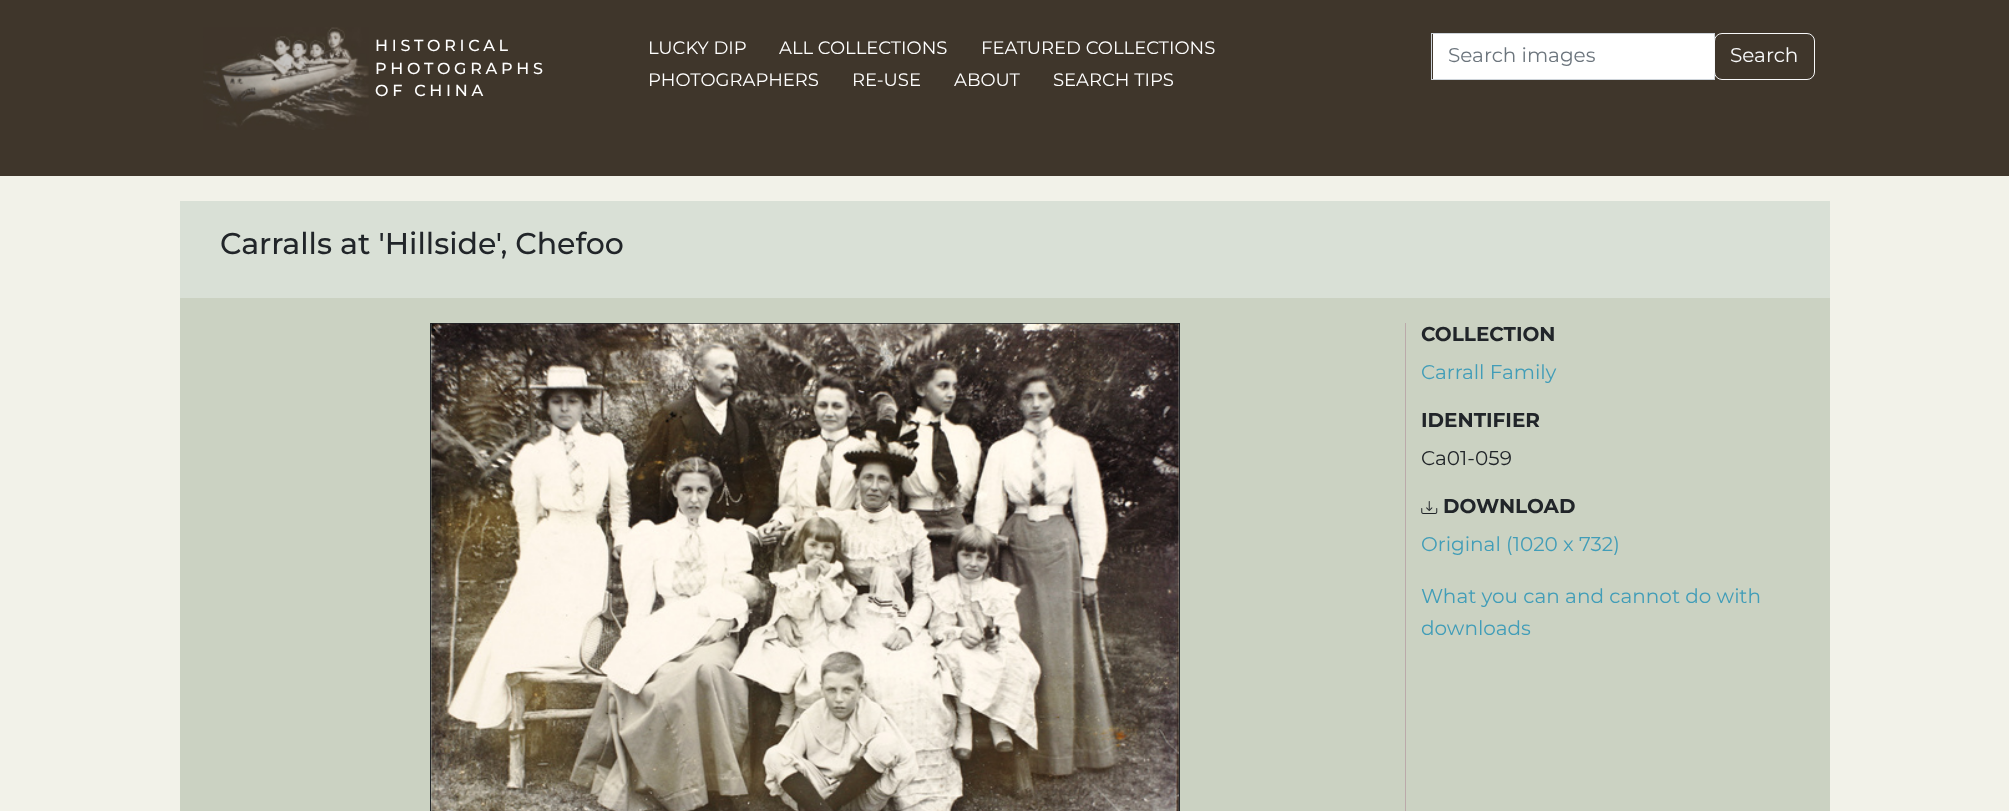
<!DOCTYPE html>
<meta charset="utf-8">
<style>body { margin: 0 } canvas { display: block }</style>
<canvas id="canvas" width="2009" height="811"></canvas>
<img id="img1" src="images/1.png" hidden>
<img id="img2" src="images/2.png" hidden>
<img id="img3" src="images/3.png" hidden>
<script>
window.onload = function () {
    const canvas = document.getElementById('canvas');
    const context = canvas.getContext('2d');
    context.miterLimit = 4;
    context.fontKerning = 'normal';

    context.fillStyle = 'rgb(242, 242, 233)';
    context.fillRect(0, 0, 2009, 811);
    context.fillStyle = 'rgb(63, 54, 43)';
    context.fillRect(0, 0, 2009, 176);
    context.drawImage(document.getElementById('img1'), 203, 27, 166, 103);
    context.fillStyle = 'rgb(255, 255, 255)';
    context.fillRect(1433, 34, 281, 45);
    context.strokeStyle = 'rgb(206, 212, 218)';
    context.strokeRect(1431.5, 33.5, 283, 46);
    context.beginPath();
    context.roundRect(1714.5, 33.5, 100, 46, 7.5);
    context.strokeStyle = 'rgb(248, 249, 250)';
    context.stroke();
    context.fillStyle = 'rgb(217, 224, 214)';
    context.fillRect(180, 201, 1650, 97);
    context.fillStyle = 'rgb(203, 210, 194)';
    context.fillRect(180, 298, 1650, 513);
    context.strokeStyle = 'rgb(33, 37, 41)';
    context.strokeRect(430.5, 323.5, 749, 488);
    context.drawImage(document.getElementById('img2'), 431, 323, 748, 488);
    context.fillStyle = 'rgb(187, 170, 170)';
    context.fillRect(1405, 323, 1, 488);
    context.drawImage(document.getElementById('img3'), 1421, 501, 17, 13);
    context.letterSpacing = '3.75px';
    context.font = '500 16px Montserrat';
    context.fillStyle = 'rgb(255, 255, 255)';
    context.fillText('HISTORICAL', 375, 51);
    context.fillText('PHOTOGRAPHS', 375, 74);
    context.fillText('OF CHINA', 375, 96);
    context.letterSpacing = '0px';
    context.font = '18px Montserrat';
    context.fillText('LUCKY DIP', 648, 54);
    context.fillText('ALL COLLECTIONS', 779, 54);
    context.fillText('FEATURED COLLECTIONS', 981, 54);
    context.fillText('PHOTOGRAPHERS', 648, 86);
    context.fillText('RE-USE', 852, 86);
    context.fillText('ABOUT', 954, 86);
    context.fillText('SEARCH TIPS', 1053, 86);
    context.font = '20px Montserrat';
    context.fillStyle = 'rgb(108, 117, 125)';
    context.fillText('Search images', 1448, 62);
    context.fillStyle = 'rgb(248, 249, 250)';
    context.fillText('Search', 1730, 62);
    context.font = '500 30px Montserrat';
    context.fillStyle = 'rgb(33, 37, 41)';
    context.fillText('Carralls at \'Hillside\', Chefoo', 220, 254);
    context.font = 'bold 20px Montserrat';
    context.fillText('COLLECTION', 1421, 341);
    context.font = '20px Montserrat';
    context.fillStyle = 'rgb(65, 157, 184)';
    context.fillText('Carrall Family', 1421, 379);
    context.font = 'bold 20px Montserrat';
    context.fillStyle = 'rgb(33, 37, 41)';
    context.fillText('IDENTIFIER', 1421, 427);
    context.font = '20px Montserrat';
    context.fillText('Ca01-059', 1421, 465);
    context.font = 'bold 20px Montserrat';
    context.fillText('DOWNLOAD', 1443, 513);
    context.font = '20px Montserrat';
    context.fillStyle = 'rgb(65, 157, 184)';
    context.fillText('Original (1020 x 732)', 1421, 551);
    context.fillText('What you can and cannot do with', 1421, 603);
    context.fillText('downloads', 1421, 635);
};
</script>
